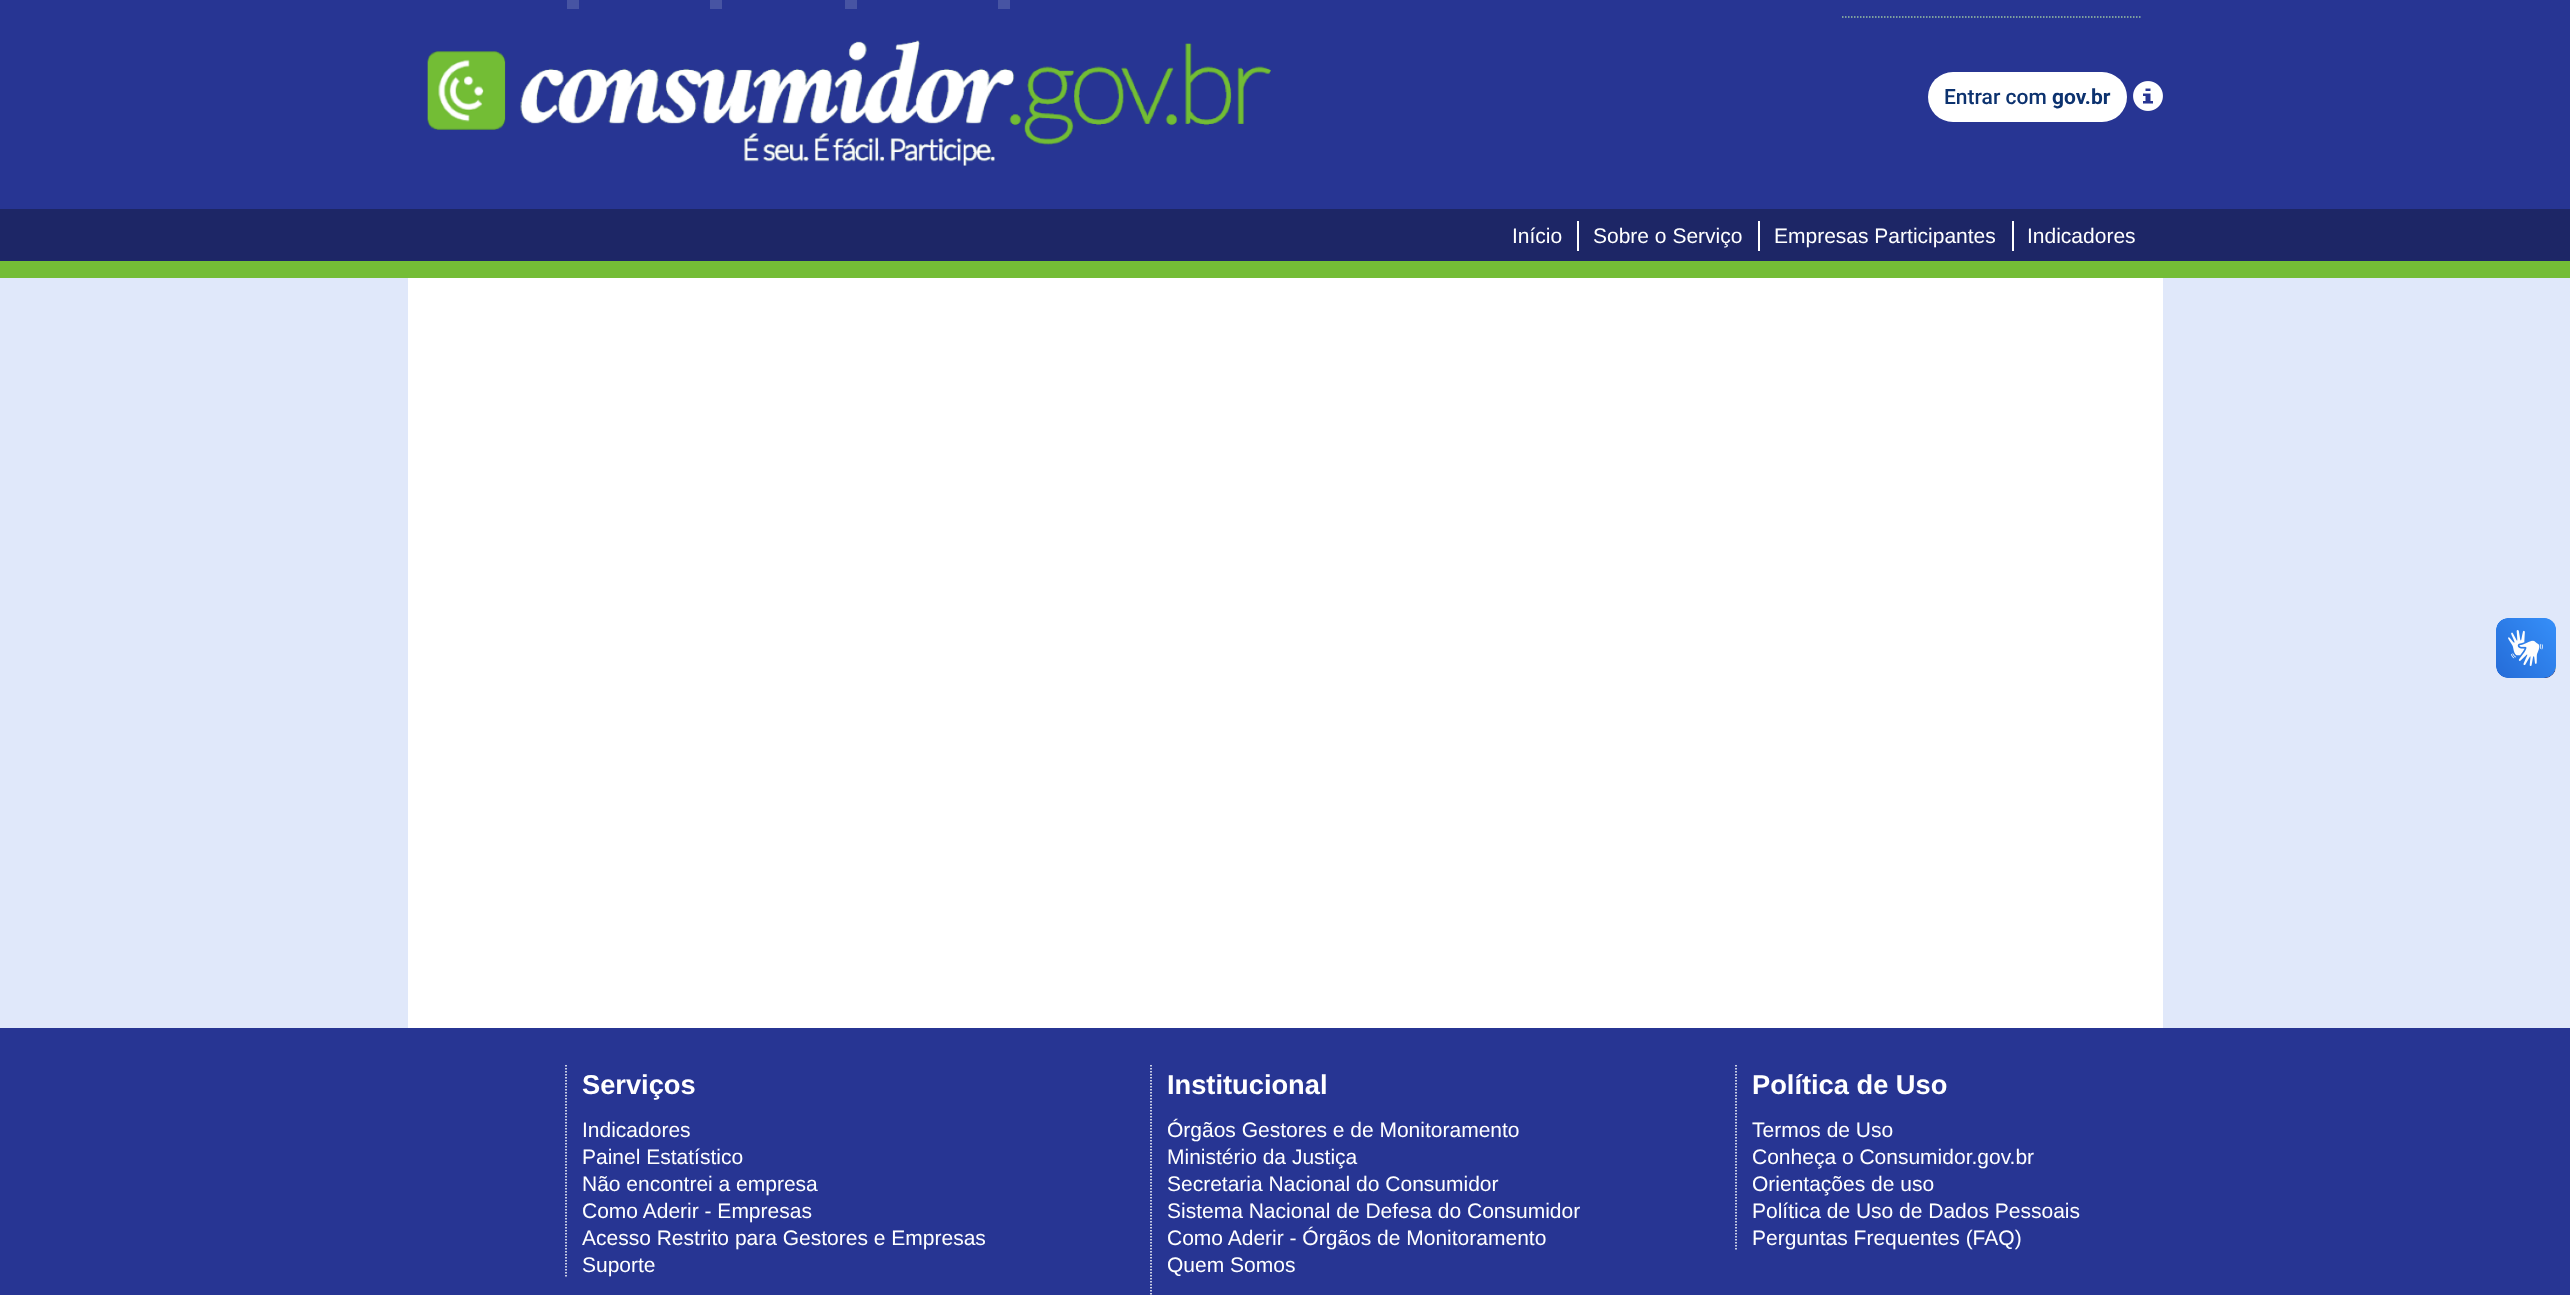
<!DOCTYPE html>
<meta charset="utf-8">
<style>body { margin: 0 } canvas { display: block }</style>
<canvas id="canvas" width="2570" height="1295"></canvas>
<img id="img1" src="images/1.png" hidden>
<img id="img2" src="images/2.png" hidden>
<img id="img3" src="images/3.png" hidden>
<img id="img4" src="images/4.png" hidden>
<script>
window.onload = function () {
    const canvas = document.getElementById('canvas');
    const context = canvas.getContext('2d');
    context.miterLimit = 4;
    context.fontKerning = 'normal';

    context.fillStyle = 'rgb(224, 232, 250)';
    context.fillRect(0, 0, 2570, 1295);
    context.fillStyle = 'rgb(39, 53, 147)';
    context.fillRect(0, 0, 2570, 209);
    context.fillStyle = 'rgb(71, 84, 163)';
    context.fillRect(567, 0, 12, 9);
    context.fillRect(710, 0, 12, 9);
    context.fillRect(845, 0, 12, 9);
    context.fillRect(998, 0, 12, 9);
    context.beginPath();
    context.moveTo(1842, 17);
    context.lineTo(2140.5, 17);
    context.strokeStyle = 'rgb(155, 194, 163)';
    context.lineWidth = 1.5;
    context.setLineDash([1.5, 1.5]);
    context.stroke();
    context.drawImage(document.getElementById('img1'), 427, 40, 844, 126);
    context.fillStyle = 'rgb(255, 255, 255)';
    context.beginPath();
    context.roundRect(1928, 72, 199, 50, 25);
    context.fill();
    context.drawImage(document.getElementById('img2'), 2133, 81, 30, 30);
    context.fillStyle = 'rgb(29, 38, 102)';
    context.fillRect(0, 209, 2570, 52);
    context.fillStyle = 'rgb(255, 255, 255)';
    context.fillRect(1577, 221, 2, 30);
    context.fillRect(1758, 221, 2, 30);
    context.fillRect(2012, 221, 2, 30);
    context.fillStyle = 'rgb(116, 189, 54)';
    context.fillRect(0, 261, 2570, 17);
    context.drawImage(document.getElementById('img3'), 2496, 618, 60, 60);
    context.drawImage(document.getElementById('img4'), 2496, 618, 60, 60);
    context.fillStyle = 'rgb(255, 255, 255)';
    context.fillRect(408, 278, 1755, 750);
    context.fillStyle = 'rgb(39, 53, 147)';
    context.fillRect(0, 1028, 2570, 267);
    context.beginPath();
    context.moveTo(566, 1065);
    context.lineTo(566, 1278);
    context.strokeStyle = 'rgb(255, 255, 255)';
    context.stroke();
    context.beginPath();
    context.moveTo(1151, 1065);
    context.lineTo(1151, 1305);
    context.stroke();
    context.beginPath();
    context.moveTo(1736, 1065);
    context.lineTo(1736, 1251);
    context.stroke();
    context.font = '500 21px Roboto';
    context.fillStyle = 'rgb(12, 50, 111)';
    context.fillText('Entrar com', 1944, 104);
    context.font = 'bold 21px Roboto';
    context.fillText('gov.br', 2052, 104);
    context.font = '21px Liberation Sans';
    context.fillStyle = 'rgb(255, 255, 255)';
    context.fillText('Início', 1512, 243);
    context.fillText('Sobre o Serviço', 1593, 243);
    context.fillText('Empresas Participantes', 1774, 243);
    context.fillText('Indicadores', 2027, 243);
    context.font = 'bold 27.25px Liberation Sans';
    context.fillText('Serviços', 582, 1094);
    context.font = '21px Liberation Sans';
    context.fillText('Indicadores', 582, 1137);
    context.fillText('Painel Estatístico', 582, 1164);
    context.fillText('Não encontrei a empresa', 582, 1191);
    context.fillText('Como Aderir - Empresas', 582, 1218);
    context.fillText('Acesso Restrito para Gestores e Empresas', 582, 1245);
    context.fillText('Suporte', 582, 1272);
    context.font = 'bold 27.25px Liberation Sans';
    context.fillText('Institucional', 1167, 1094);
    context.font = '21px Liberation Sans';
    context.fillText('Órgãos Gestores e de Monitoramento', 1167, 1137);
    context.fillText('Ministério da Justiça', 1167, 1164);
    context.fillText('Secretaria Nacional do Consumidor', 1167, 1191);
    context.fillText('Sistema Nacional de Defesa do Consumidor', 1167, 1218);
    context.fillText('Como Aderir - Órgãos de Monitoramento', 1167, 1245);
    context.fillText('Quem Somos', 1167, 1272);
    context.font = 'bold 27.25px Liberation Sans';
    context.fillText('Política de Uso', 1752, 1094);
    context.font = '21px Liberation Sans';
    context.fillText('Termos de Uso', 1752, 1137);
    context.fillText('Conheça o Consumidor.gov.br', 1752, 1164);
    context.fillText('Orientações de uso', 1752, 1191);
    context.fillText('Política de Uso de Dados Pessoais', 1752, 1218);
    context.fillText('Perguntas Frequentes (FAQ)', 1752, 1245);
};
</script>
